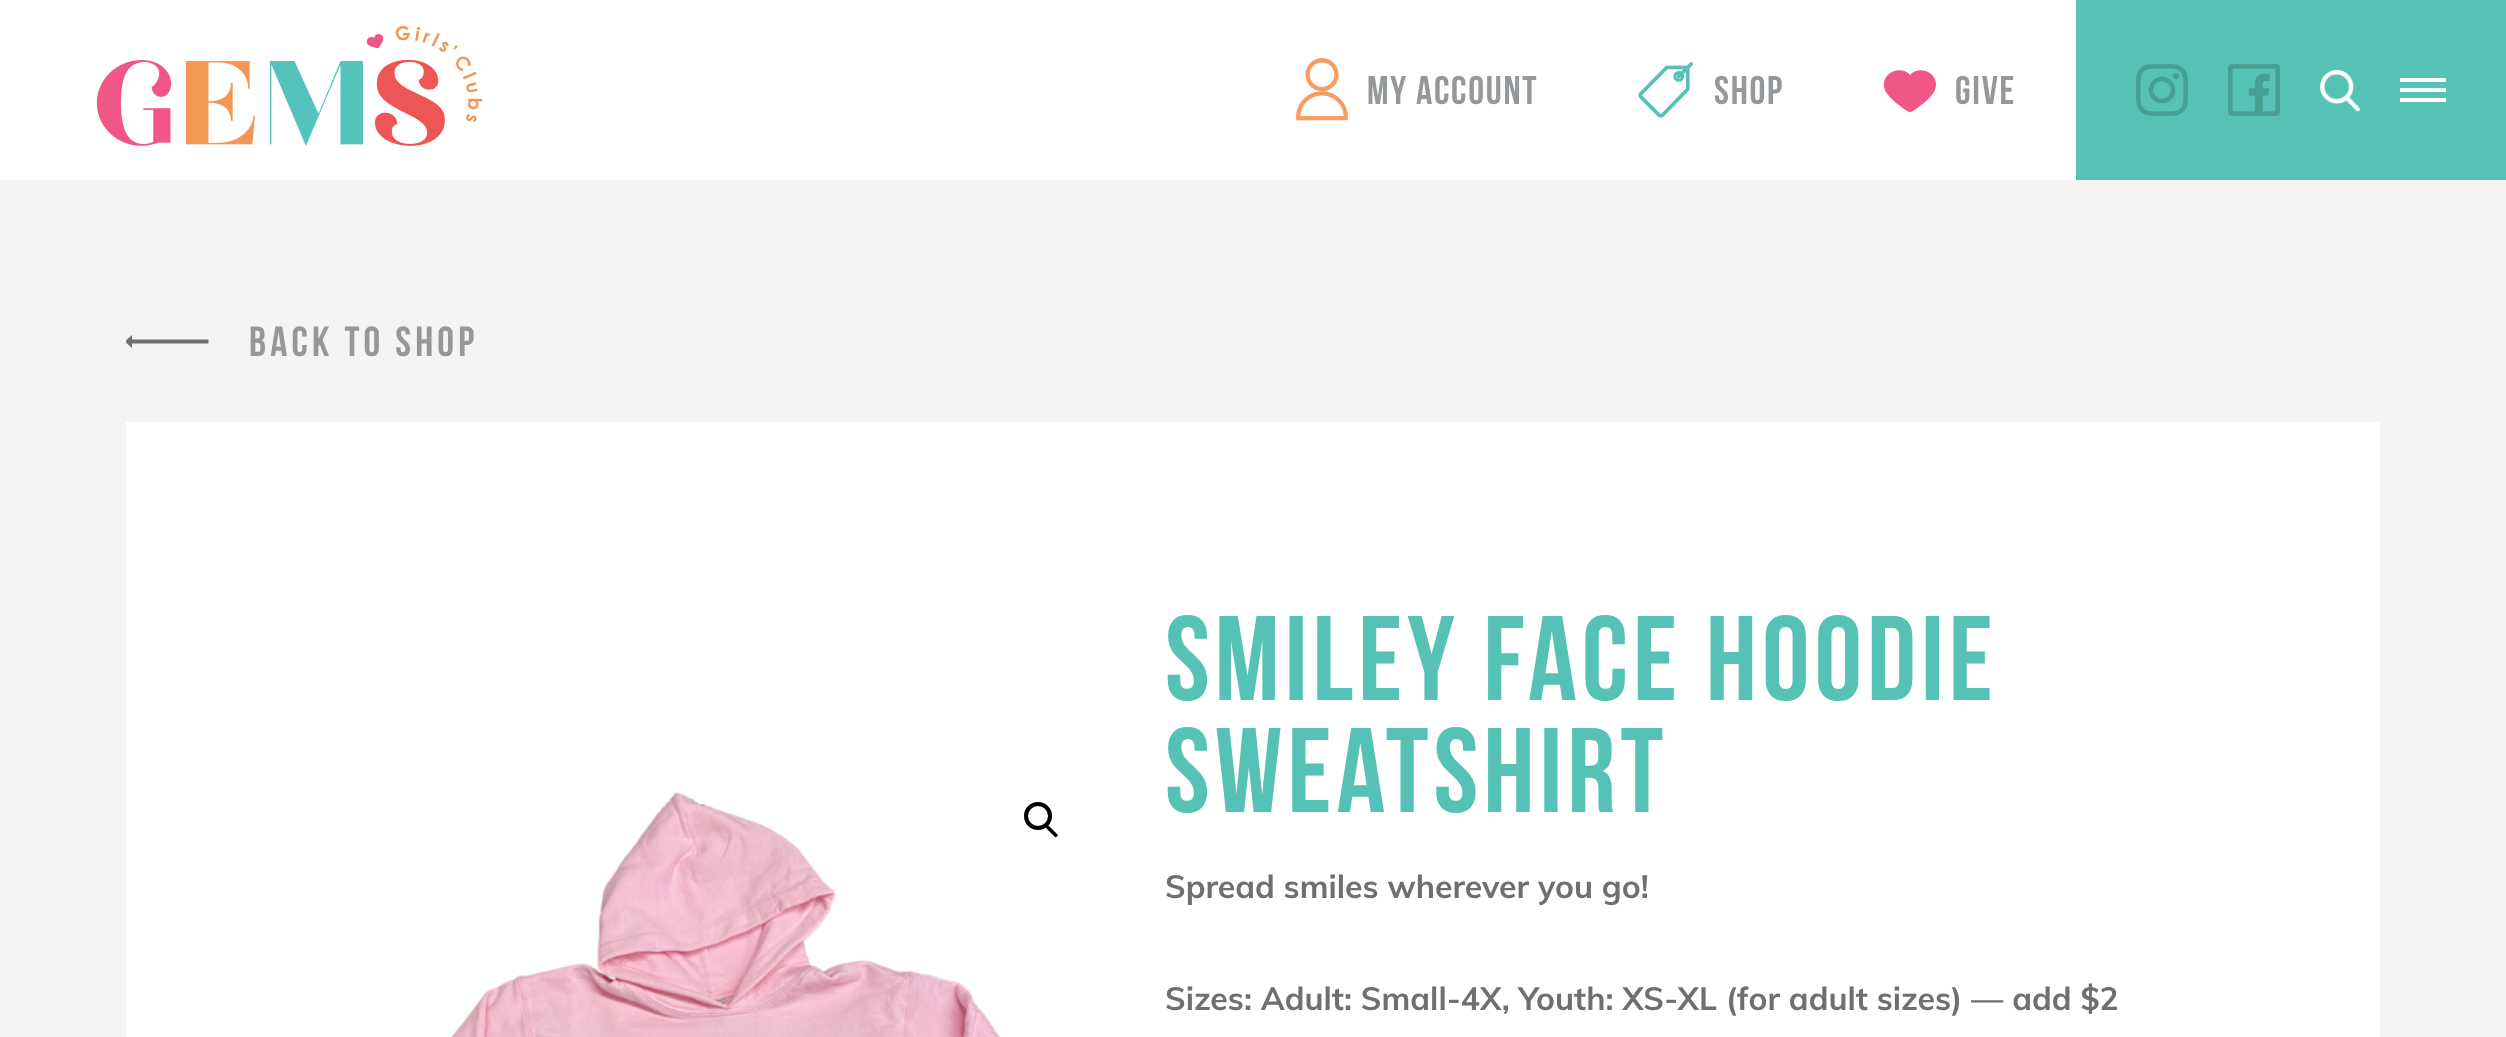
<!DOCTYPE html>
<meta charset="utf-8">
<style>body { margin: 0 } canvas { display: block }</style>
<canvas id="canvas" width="2506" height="1037"></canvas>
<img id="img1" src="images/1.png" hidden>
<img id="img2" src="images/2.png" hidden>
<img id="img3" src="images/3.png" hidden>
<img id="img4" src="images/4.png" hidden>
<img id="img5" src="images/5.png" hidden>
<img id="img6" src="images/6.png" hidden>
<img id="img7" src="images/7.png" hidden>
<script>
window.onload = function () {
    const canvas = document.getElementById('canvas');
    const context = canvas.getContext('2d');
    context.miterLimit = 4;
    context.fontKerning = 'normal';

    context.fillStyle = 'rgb(255, 255, 255)';
    context.fillRect(0, 0, 2506, 1037);
    context.drawImage(document.getElementById('img1'), 96, 26, 387, 120);
    context.drawImage(document.getElementById('img2'), 1296, 58, 52, 63);
    context.drawImage(document.getElementById('img3'), 1638, 62, 56, 56);
    context.fillStyle = 'rgb(240, 87, 134)';
    context.beginPath();
    context.moveTo(1910, 112);
    context.bezierCurveTo(1907, 112, 1898, 104, 1896, 103);
    context.bezierCurveTo(1892, 99, 1887, 95, 1885, 90);
    context.bezierCurveTo(1879, 74, 1900, 64, 1910, 75);
    context.bezierCurveTo(1920, 64, 1941, 74, 1935, 90);
    context.bezierCurveTo(1933, 95, 1928, 99, 1924, 103);
    context.bezierCurveTo(1922, 104, 1913, 112, 1910, 112);
    context.closePath();
    context.fill();
    context.fillStyle = 'rgb(86, 194, 181)';
    context.fillRect(2076, 0, 430, 180);
    context.drawImage(document.getElementById('img4'), 2136, 64, 52, 52);
    context.drawImage(document.getElementById('img5'), 2228, 64, 52, 52);
    context.drawImage(document.getElementById('img6'), 2320, 70, 40, 42);
    context.fillStyle = 'rgb(255, 255, 255)';
    context.fillRect(2400, 78, 46, 4);
    context.fillRect(2400, 88, 46, 4);
    context.fillRect(2400, 98, 46, 4);
    context.fillStyle = 'rgb(245, 244, 242)';
    context.fillRect(0, 180, 2506, 857);
    context.beginPath();
    context.moveTo(208.5, 341.5);
    context.lineTo(132, 341.5);
    context.strokeStyle = 'rgb(111, 111, 111)';
    context.lineWidth = 4;
    context.stroke();
    context.save();
    context.beginPath();
    context.rect(126, 334, 84, 14);
    context.clip();
    context.fillStyle = 'rgb(111, 111, 111)';
    context.beginPath();
    context.moveTo(132, 348);
    context.lineTo(132, 335);
    context.lineTo(125, 341.5);
    context.closePath();
    context.fill();
    context.restore();
    context.fillStyle = 'rgb(255, 255, 255)';
    context.fillRect(126, 422, 2254, 615);
    context.drawImage(document.getElementById('img7'), 450, 792, 551, 245);
    context.beginPath();
    context.arc(1038, 816, 12, 0, 2 * Math.PI);
    context.strokeStyle = 'rgb(0, 0, 0)';
    context.stroke();
    context.fillStyle = 'rgb(0, 0, 0)';
    context.beginPath();
    context.moveTo(1046, 825.5);
    context.bezierCurveTo(1046.5, 824.5, 1048, 824.5, 1048.5, 825.5);
    context.lineTo(1057, 834);
    context.bezierCurveTo(1058, 834.5, 1058, 836, 1057, 836.5);
    context.bezierCurveTo(1056.5, 837.5, 1055, 837.5, 1054.5, 836.5);
    context.lineTo(1046, 828);
    context.bezierCurveTo(1045, 827.5, 1045, 826, 1046, 825.5);
    context.closePath();
    context.fill();
    context.letterSpacing = '1.75px';
    context.font = '40px Bebas Neue';
    context.fillStyle = 'rgb(149, 152, 154)';
    context.fillText('MY ACCOUNT', 1367, 104);
    context.fillText('SHOP', 1714, 104);
    context.fillText('GIVE', 1955, 104);
    context.letterSpacing = '4.25px';
    context.font = '42px Bebas Neue';
    context.fillText('BACK TO SHOP', 249, 356);
    context.letterSpacing = '5px';
    context.font = '120px Bebas Neue';
    context.fillStyle = 'rgb(86, 194, 181)';
    context.fillText('SMILEY FACE HOODIE', 1165, 700);
    context.fillText('SWEATSHIRT', 1165, 812);
    context.letterSpacing = '0px';
    context.font = 'bold 32px Muli';
    context.fillStyle = 'rgb(111, 111, 111)';
    context.fillText('Spread smiles wherever you go!', 1165, 898);
    context.fillText('Sizes: Adult: Small-4X, Youth: XS-XL (for adult sizes) — add $2', 1165, 1010);
};
</script>
